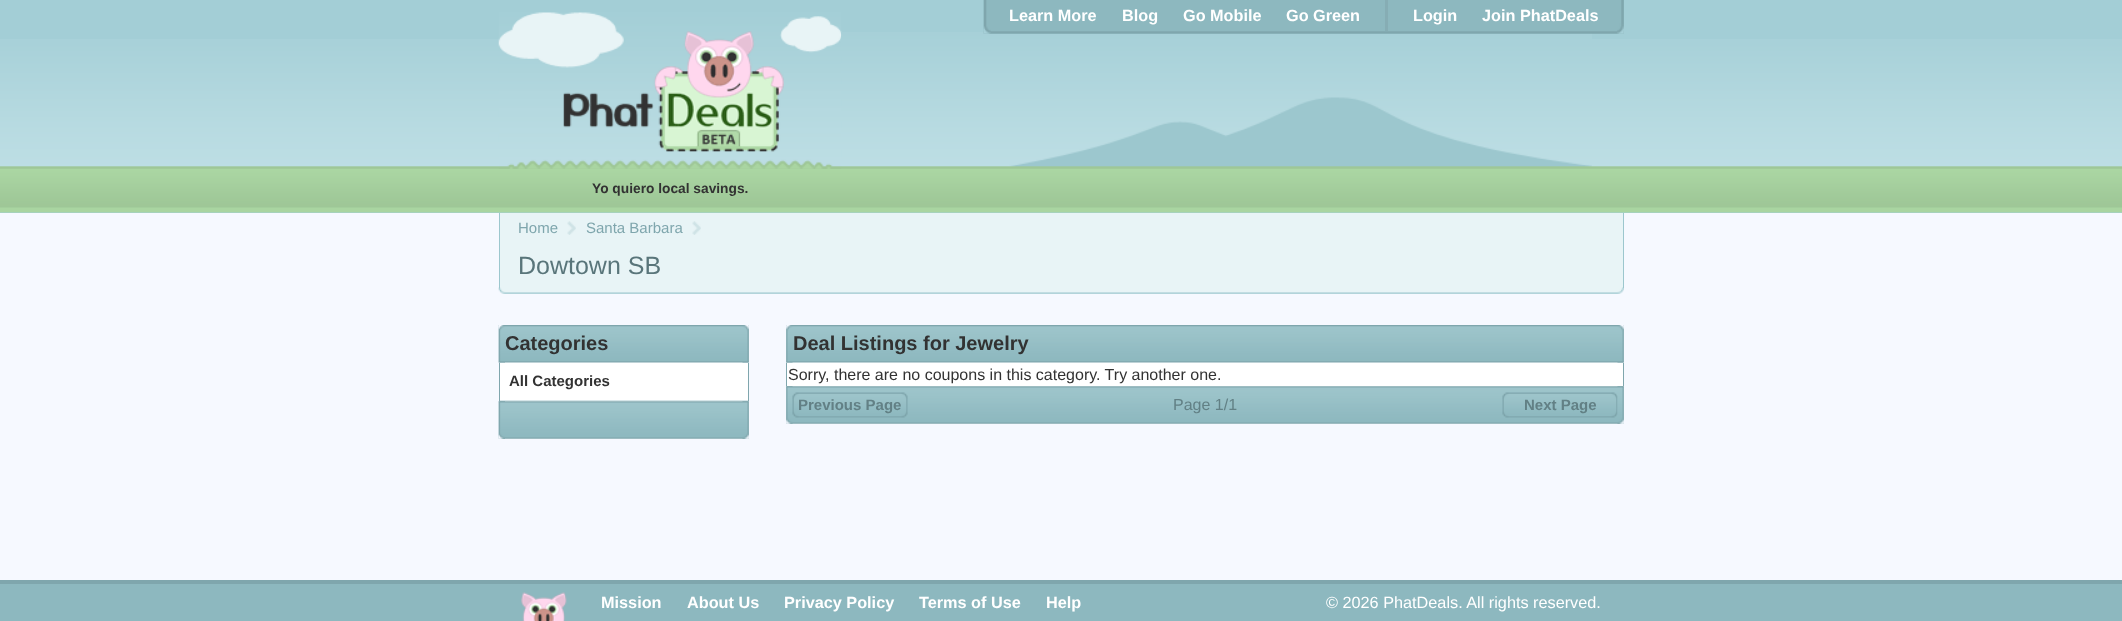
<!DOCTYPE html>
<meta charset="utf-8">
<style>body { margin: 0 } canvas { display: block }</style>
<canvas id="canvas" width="2122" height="621"></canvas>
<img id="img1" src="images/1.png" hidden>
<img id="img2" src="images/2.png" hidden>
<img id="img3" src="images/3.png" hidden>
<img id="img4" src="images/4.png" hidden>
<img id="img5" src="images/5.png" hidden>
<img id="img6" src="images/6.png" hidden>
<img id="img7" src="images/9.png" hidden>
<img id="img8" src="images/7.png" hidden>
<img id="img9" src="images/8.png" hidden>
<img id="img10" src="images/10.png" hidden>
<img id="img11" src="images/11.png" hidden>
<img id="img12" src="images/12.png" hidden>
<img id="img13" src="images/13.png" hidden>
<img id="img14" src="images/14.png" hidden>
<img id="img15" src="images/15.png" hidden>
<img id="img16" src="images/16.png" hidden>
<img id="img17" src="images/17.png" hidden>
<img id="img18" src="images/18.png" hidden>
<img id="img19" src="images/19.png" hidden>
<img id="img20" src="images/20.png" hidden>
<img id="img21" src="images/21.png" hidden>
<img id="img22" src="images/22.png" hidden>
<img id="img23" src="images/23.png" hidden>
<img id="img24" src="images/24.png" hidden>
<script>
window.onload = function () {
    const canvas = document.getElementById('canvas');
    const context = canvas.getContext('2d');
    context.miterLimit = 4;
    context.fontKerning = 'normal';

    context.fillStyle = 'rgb(246, 249, 255)';
    context.fillRect(0, 0, 2122, 621);
    context.fillStyle = 'rgb(163, 206, 214)';
    context.fillRect(0, 0, 2122, 213);
    context.drawImage(document.getElementById('img1'), 0, 39, 2122, 174);
    context.drawImage(document.getElementById('img2'), 498, 12, 344, 157);
    context.drawImage(document.getElementById('img3'), 841, 32, 751, 135);
    context.drawImage(document.getElementById('img4'), 983, 0, 641, 34);
    context.drawImage(document.getElementById('img5'), 983, 0, 8, 34);
    context.fillStyle = 'rgb(134, 173, 180)';
    context.fillRect(1385, 0, 3, 31);
    context.drawImage(document.getElementById('img6'), 1617, 0, 7, 34);
    context.fillStyle = 'rgb(232, 244, 246)';
    context.fillRect(500, 213, 1123, 75);
    context.drawImage(document.getElementById('img7'), 498, 287, 1126, 7);
    context.fillStyle = 'rgb(156, 199, 206)';
    context.fillRect(1623, 213, 1, 75);
    context.fillRect(499, 213, 1, 75);
    context.drawImage(document.getElementById('img8'), 567, 221, 9, 14);
    context.drawImage(document.getElementById('img9'), 692, 221, 9, 14);
    context.fillStyle = 'rgb(255, 255, 255)';
    context.fillRect(499, 325, 250, 114);
    context.drawImage(document.getElementById('img10'), 498, 325, 251, 38);
    context.drawImage(document.getElementById('img11'), 498, 325, 7, 38);
    context.drawImage(document.getElementById('img12'), 742, 325, 7, 38);
    context.fillStyle = 'rgb(127, 166, 173)';
    context.fillRect(748, 363, 1, 38);
    context.fillRect(499, 363, 1, 38);
    context.fillStyle = 'rgb(215, 230, 233)';
    context.fillRect(500, 400, 248, 1);
    context.drawImage(document.getElementById('img13'), 498, 401, 251, 38);
    context.drawImage(document.getElementById('img14'), 498, 401, 7, 38);
    context.drawImage(document.getElementById('img15'), 742, 401, 7, 38);
    context.fillStyle = 'rgb(255, 255, 255)';
    context.fillRect(786, 325, 838, 99);
    context.drawImage(document.getElementById('img16'), 786, 325, 838, 38);
    context.drawImage(document.getElementById('img17'), 786, 325, 7, 38);
    context.drawImage(document.getElementById('img18'), 1617, 325, 7, 38);
    context.fillStyle = 'rgb(127, 166, 173)';
    context.fillRect(1623, 363, 1, 23);
    context.fillRect(786, 363, 1, 23);
    context.drawImage(document.getElementById('img19'), 786, 386, 838, 38);
    context.drawImage(document.getElementById('img20'), 786, 386, 7, 38);
    context.drawImage(document.getElementById('img21'), 792, 392, 116, 26);
    context.drawImage(document.getElementById('img22'), 1502, 392, 116, 26);
    context.drawImage(document.getElementById('img23'), 1617, 386, 7, 38);
    context.fillStyle = 'rgb(141, 184, 191)';
    context.fillRect(0, 584, 2122, 37);
    context.fillStyle = 'rgb(127, 166, 173)';
    context.fillRect(0, 580, 2122, 4);
    context.drawImage(document.getElementById('img24'), 521, 592, 46, 29);
    context.font = 'bold 16.25px Liberation Sans';
    context.fillStyle = 'rgb(255, 255, 255)';
    context.fillText('Learn More', 1009, 21);
    context.fillText('Blog', 1122, 21);
    context.fillText('Go Mobile', 1183, 21);
    context.fillText('Go Green', 1286, 21);
    context.fillText('Login', 1413, 21);
    context.fillText('Join PhatDeals', 1482, 21);
    context.font = 'bold 13.75px Liberation Sans';
    context.fillStyle = 'rgb(50, 50, 50)';
    context.fillText('Yo quiero local savings.', 592, 193);
    context.font = '15px Liberation Sans';
    context.fillStyle = 'rgb(127, 166, 173)';
    context.fillText('Home', 518, 233);
    context.fillText('Santa Barbara', 586, 233);
    context.font = '25px Liberation Sans';
    context.fillStyle = 'rgb(89, 117, 122)';
    context.fillText('Dowtown SB', 518, 274);
    context.font = 'bold 20px Liberation Sans';
    context.fillStyle = 'rgb(50, 50, 50)';
    context.fillText('Categories', 505, 350);
    context.font = 'bold 15px Liberation Sans';
    context.fillText('All Categories', 509, 386);
    context.font = 'bold 20px Liberation Sans';
    context.fillText('Deal Listings for Jewelry', 793, 350);
    context.font = '16px Liberation Sans';
    context.fillText('Sorry, there are no coupons in this category. Try another one.', 788, 380);
    context.font = 'bold 15px Liberation Sans';
    context.fillStyle = 'rgb(98, 128, 133)';
    context.fillText('Previous Page', 798, 410);
    context.font = '16px Liberation Sans';
    context.fillText('Page 1/1', 1173, 410);
    context.font = 'bold 15px Liberation Sans';
    context.fillText('Next Page', 1524, 410);
    context.font = 'bold 16.25px Liberation Sans';
    context.fillStyle = 'rgb(255, 255, 255)';
    context.fillText('Mission', 601, 608);
    context.fillText('About Us', 687, 608);
    context.fillText('Privacy Policy', 784, 608);
    context.fillText('Terms of Use', 919, 608);
    context.fillText('Help', 1046, 608);
    context.font = '16.25px Liberation Sans';
    context.fillText('© 2026 PhatDeals. All rights reserved.', 1326, 608);
};
</script>
